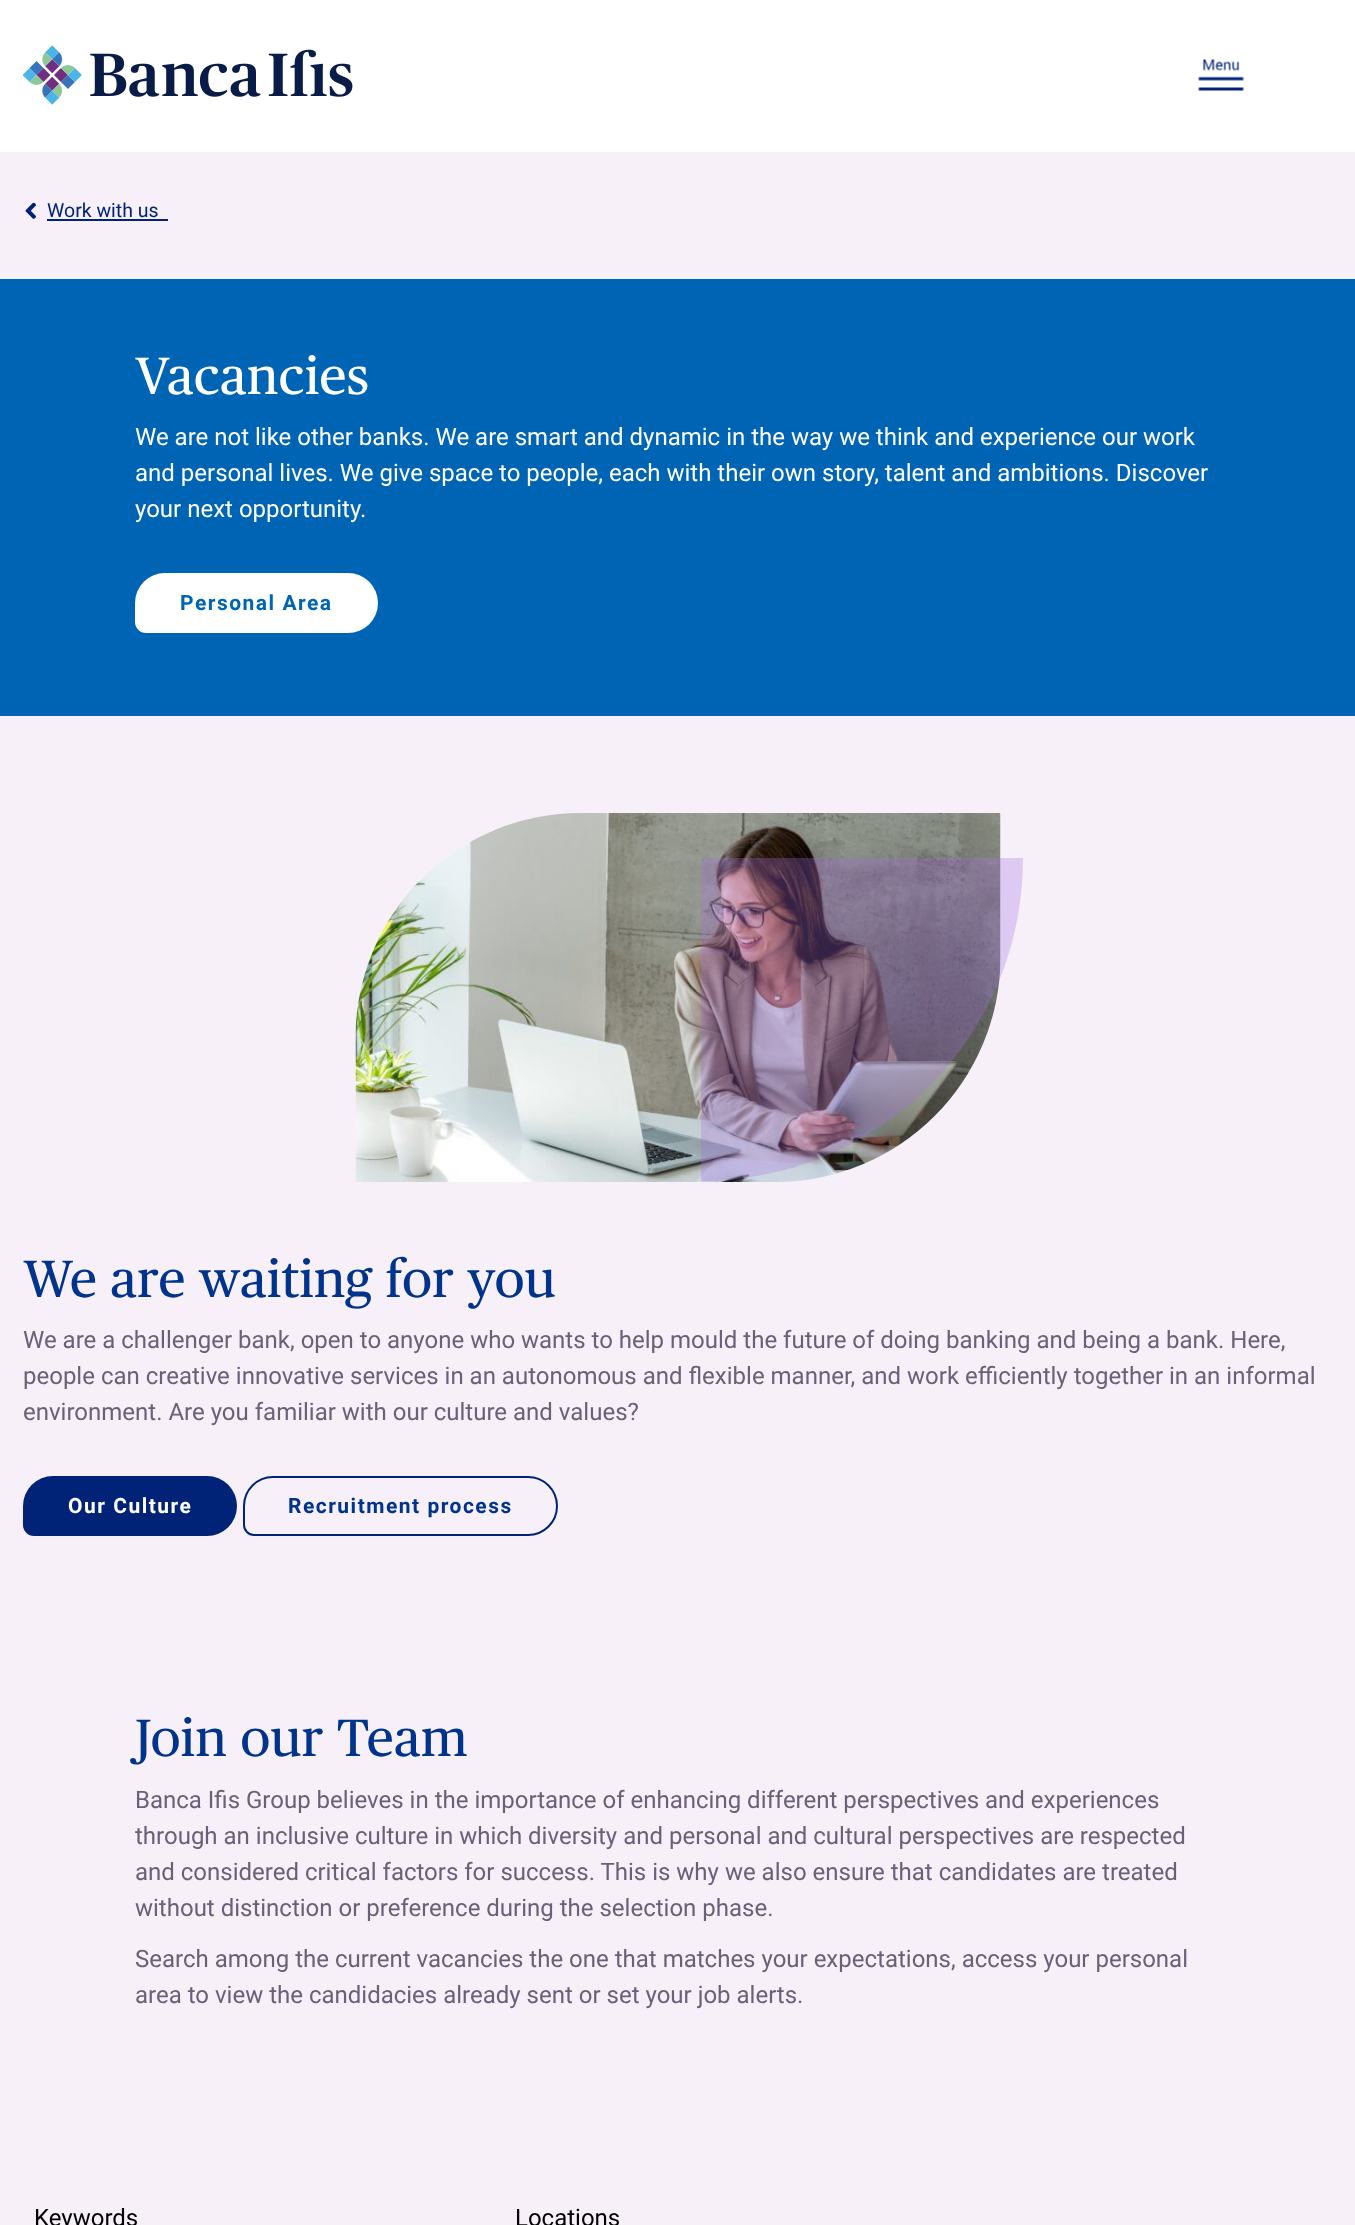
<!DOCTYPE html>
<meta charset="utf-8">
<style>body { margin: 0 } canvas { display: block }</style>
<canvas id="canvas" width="1355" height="2225"></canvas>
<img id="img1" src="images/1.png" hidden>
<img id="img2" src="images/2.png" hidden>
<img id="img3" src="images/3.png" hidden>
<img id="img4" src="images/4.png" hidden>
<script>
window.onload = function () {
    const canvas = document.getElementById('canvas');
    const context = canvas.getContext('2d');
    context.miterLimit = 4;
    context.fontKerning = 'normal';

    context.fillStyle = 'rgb(247, 240, 249)';
    context.fillRect(0, 0, 1355, 2225);
    context.fillStyle = 'rgb(255, 255, 255)';
    context.fillRect(0, 0, 1355, 152);
    context.drawImage(document.getElementById('img1'), 23, 45, 330, 60);
    context.drawImage(document.getElementById('img2'), 1198, 59, 46, 32);
    context.drawImage(document.getElementById('img3'), 25, 202, 11, 17);
    context.fillStyle = 'rgb(0, 35, 120)';
    context.fillRect(47, 219, 121, 2);
    context.fillStyle = 'rgb(0, 100, 181)';
    context.fillRect(0, 279, 1355, 437);
    context.fillStyle = 'rgb(255, 255, 255)';
    context.beginPath();
    context.roundRect(135, 573, 243, 60, [30, 30, 30, 11]);
    context.fill();
    context.drawImage(document.getElementById('img4'), 355, 813, 646, 369);
    context.fillStyle = 'rgba(167, 112, 225, 0.3)';
    context.beginPath();
    context.roundRect(701, 858, 322, 323, [0, 0, 322, 0]);
    context.fill();
    context.fillStyle = 'rgb(0, 35, 120)';
    context.beginPath();
    context.roundRect(23, 1476, 214, 60, [30, 30, 30, 11]);
    context.fill();
    context.beginPath();
    context.roundRect(244, 1477, 313, 58, [29, 29, 29, 10]);
    context.strokeStyle = 'rgb(0, 35, 120)';
    context.lineWidth = 2;
    context.stroke();
    context.font = '19.5px Roboto';
    context.fillText('Work with us', 47, 217);
    context.font = '52.5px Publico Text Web';
    context.fillStyle = 'rgb(255, 255, 255)';
    context.fillText('Vacancies', 135, 394);
    context.font = '24px Roboto';
    context.fillText('We are not like other banks. We are smart and dynamic in the way we think and experience our work', 135, 445);
    context.fillText('and personal lives. We give space to people, each with their own story, talent and ambitions. Discover', 135, 481);
    context.fillText('your next opportunity.', 135, 517);
    context.letterSpacing = '1.5px';
    context.font = 'bold 21px Roboto';
    context.fillStyle = 'rgb(0, 100, 181)';
    context.fillText('Personal Area', 180, 610);
    context.letterSpacing = '0px';
    context.font = '52.5px Publico Text Web';
    context.fillStyle = 'rgb(0, 51, 140)';
    context.fillText('We are waiting for you', 23, 1297);
    context.font = '24px Roboto';
    context.fillStyle = 'rgb(106, 97, 120)';
    context.fillText('We are a challenger bank, open to anyone who wants to help mould the future of doing banking and being a bank. Here,', 23, 1348);
    context.fillText('people can creative innovative services in an autonomous and flexible manner, and work efficiently together in an informal', 23, 1384);
    context.fillText('environment. Are you familiar with our culture and values?', 23, 1420);
    context.letterSpacing = '1.5px';
    context.font = 'bold 21px Roboto';
    context.fillStyle = 'rgb(255, 255, 255)';
    context.fillText('Our Culture', 68, 1513);
    context.fillStyle = 'rgb(0, 51, 140)';
    context.fillText('Recruitment process', 288, 1513);
    context.letterSpacing = '0px';
    context.font = '52.5px Publico Text Web';
    context.fillText('Join our Team', 135, 1756);
    context.font = '24px Roboto';
    context.fillStyle = 'rgb(106, 97, 120)';
    context.fillText('Banca Ifis Group believes in the importance of enhancing different perspectives and experiences', 135, 1808);
    context.fillText('through an inclusive culture in which diversity and personal and cultural perspectives are respected', 135, 1844);
    context.fillText('and considered critical factors for success. This is why we also ensure that candidates are treated', 135, 1880);
    context.fillText('without distinction or preference during the selection phase.', 135, 1916);
    context.fillText('Search among the current vacancies the one that matches your expectations, access your personal', 135, 1967);
    context.fillText('area to view the candidacies already sent or set your job alerts.', 135, 2003);
    context.fillStyle = 'rgb(0, 0, 0)';
    context.fillText('Keywords', 34, 2226);
    context.fillText('Locations', 515, 2226);
};
</script>
